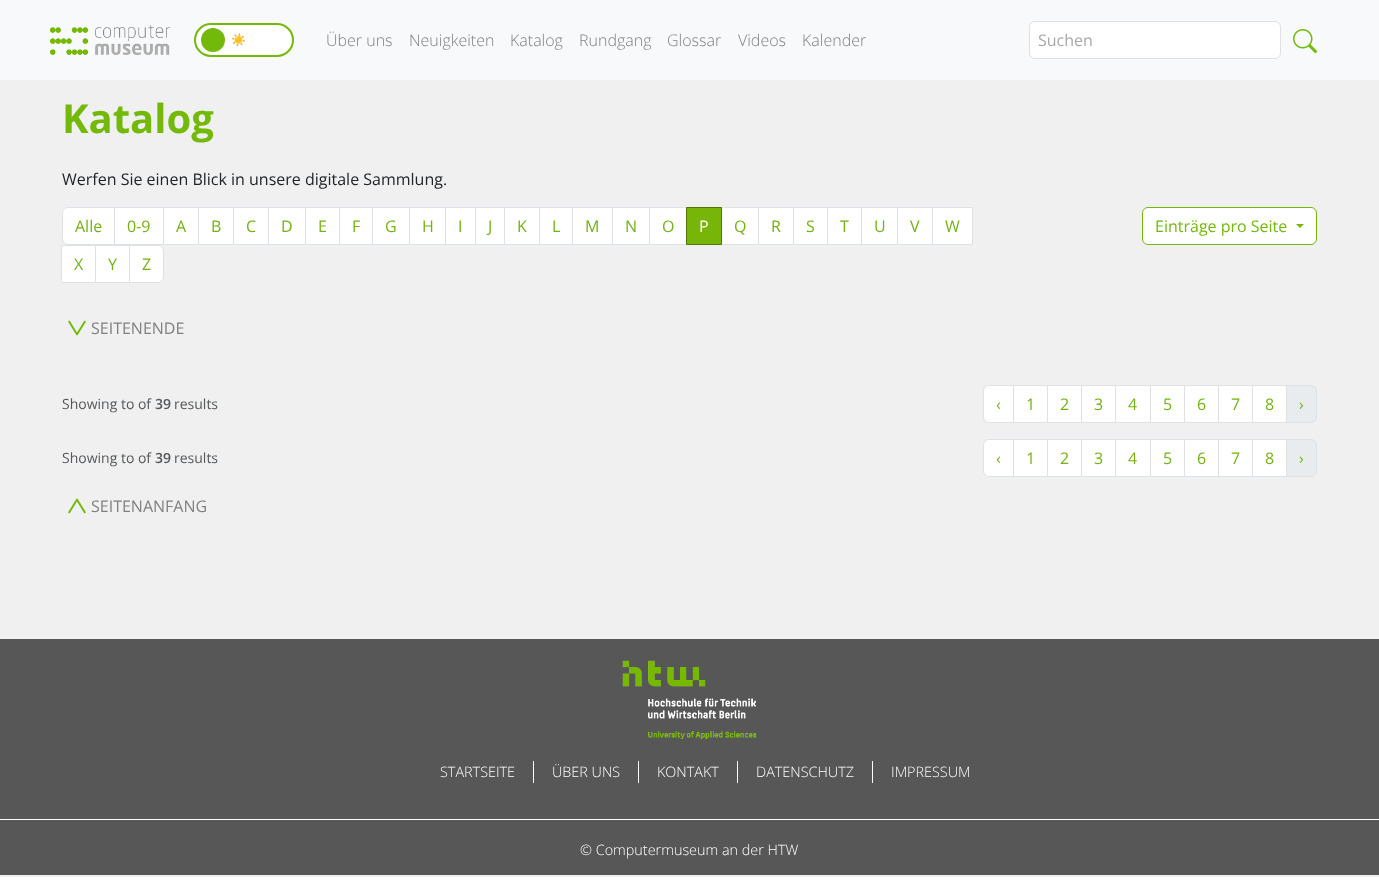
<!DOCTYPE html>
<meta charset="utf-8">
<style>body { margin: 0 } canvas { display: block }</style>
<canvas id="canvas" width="1379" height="877"></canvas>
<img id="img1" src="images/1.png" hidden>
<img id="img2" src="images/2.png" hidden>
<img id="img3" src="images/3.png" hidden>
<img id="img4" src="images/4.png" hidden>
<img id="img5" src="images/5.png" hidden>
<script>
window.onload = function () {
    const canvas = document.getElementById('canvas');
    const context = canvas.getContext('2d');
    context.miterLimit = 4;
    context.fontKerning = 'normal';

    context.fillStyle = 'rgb(240, 240, 240)';
    context.fillRect(0, 0, 1379, 877);
    context.fillStyle = 'rgb(248, 249, 250)';
    context.fillRect(0, 0, 1379, 80);
    context.drawImage(document.getElementById('img1'), 50, 25, 120, 30);
    context.fillStyle = 'rgb(255, 255, 255)';
    context.beginPath();
    context.roundRect(195, 24, 98, 32, 16);
    context.fill();
    context.strokeStyle = 'rgb(115, 185, 10)';
    context.lineWidth = 2;
    context.stroke();
    context.fillStyle = 'rgb(115, 185, 10)';
    context.beginPath();
    context.arc(213, 40, 12, 0, 2 * Math.PI);
    context.fill();
    context.fillStyle = 'rgb(255, 255, 255)';
    context.beginPath();
    context.roundRect(1029.5, 21.5, 251, 37, 5.5);
    context.fill();
    context.strokeStyle = 'rgb(222, 226, 230)';
    context.lineWidth = 1;
    context.stroke();
    context.drawImage(document.getElementById('img2'), 1293, 29, 24, 24);
    context.beginPath();
    context.roundRect(62.5, 207.5, 52, 37, [5.5, 0, 0, 5.5]);
    context.fill();
    context.stroke();
    context.beginPath();
    context.rect(114.5, 207.5, 49, 37);
    context.fill();
    context.stroke();
    context.beginPath();
    context.rect(163.5, 207.5, 35, 37);
    context.fill();
    context.stroke();
    context.beginPath();
    context.rect(198.5, 207.5, 35, 37);
    context.fill();
    context.stroke();
    context.beginPath();
    context.rect(233.5, 207.5, 35, 37);
    context.fill();
    context.stroke();
    context.beginPath();
    context.rect(268.5, 207.5, 37, 37);
    context.fill();
    context.stroke();
    context.beginPath();
    context.rect(305.5, 207.5, 34, 37);
    context.fill();
    context.stroke();
    context.beginPath();
    context.rect(339.5, 207.5, 33, 37);
    context.fill();
    context.stroke();
    context.beginPath();
    context.rect(372.5, 207.5, 37, 37);
    context.fill();
    context.stroke();
    context.beginPath();
    context.rect(409.5, 207.5, 36, 37);
    context.fill();
    context.stroke();
    context.beginPath();
    context.rect(445.5, 207.5, 30, 37);
    context.fill();
    context.stroke();
    context.beginPath();
    context.rect(475.5, 207.5, 29, 37);
    context.fill();
    context.stroke();
    context.beginPath();
    context.rect(504.5, 207.5, 35, 37);
    context.fill();
    context.stroke();
    context.beginPath();
    context.rect(539.5, 207.5, 33, 37);
    context.fill();
    context.stroke();
    context.beginPath();
    context.rect(572.5, 207.5, 40, 37);
    context.fill();
    context.stroke();
    context.beginPath();
    context.rect(612.5, 207.5, 37, 37);
    context.fill();
    context.stroke();
    context.beginPath();
    context.rect(649.5, 207.5, 37, 37);
    context.fill();
    context.stroke();
    context.beginPath();
    context.rect(721.5, 207.5, 37, 37);
    context.fill();
    context.stroke();
    context.fillStyle = 'rgb(119, 181, 8)';
    context.beginPath();
    context.rect(686.5, 207.5, 35, 37);
    context.fill();
    context.strokeStyle = 'rgb(82, 118, 6)';
    context.stroke();
    context.fillStyle = 'rgb(255, 255, 255)';
    context.beginPath();
    context.rect(758.5, 207.5, 35, 37);
    context.fill();
    context.strokeStyle = 'rgb(222, 226, 230)';
    context.stroke();
    context.beginPath();
    context.rect(793.5, 207.5, 34, 37);
    context.fill();
    context.stroke();
    context.beginPath();
    context.rect(827.5, 207.5, 34, 37);
    context.fill();
    context.stroke();
    context.beginPath();
    context.rect(861.5, 207.5, 36, 37);
    context.fill();
    context.stroke();
    context.beginPath();
    context.rect(897.5, 207.5, 35, 37);
    context.fill();
    context.stroke();
    context.beginPath();
    context.rect(932.5, 207.5, 40, 37);
    context.fill();
    context.stroke();
    context.beginPath();
    context.rect(61.5, 245.5, 34, 37);
    context.fill();
    context.stroke();
    context.beginPath();
    context.rect(95.5, 245.5, 34, 37);
    context.fill();
    context.stroke();
    context.beginPath();
    context.roundRect(129.5, 245.5, 34, 37, [0, 5.5, 5.5, 0]);
    context.fill();
    context.stroke();
    context.beginPath();
    context.roundRect(1142.5, 207.5, 174, 37, 5.5);
    context.fill();
    context.strokeStyle = 'rgb(119, 181, 8)';
    context.stroke();
    context.fillStyle = 'rgb(119, 181, 8)';
    context.beginPath();
    context.moveTo(1296, 224);
    context.lineTo(1304, 224);
    context.lineTo(1300, 228);
    context.closePath();
    context.fill();
    context.drawImage(document.getElementById('img3'), 68, 320, 18, 16);
    context.fillStyle = 'rgb(255, 255, 255)';
    context.beginPath();
    context.roundRect(983.5, 385.5, 30, 37, [5.5, 0, 0, 5.5]);
    context.fill();
    context.strokeStyle = 'rgb(222, 226, 230)';
    context.stroke();
    context.beginPath();
    context.rect(1013.5, 385.5, 34, 37);
    context.fill();
    context.stroke();
    context.beginPath();
    context.rect(1047.5, 385.5, 34, 37);
    context.fill();
    context.stroke();
    context.beginPath();
    context.rect(1081.5, 385.5, 34, 37);
    context.fill();
    context.stroke();
    context.beginPath();
    context.rect(1115.5, 385.5, 35, 37);
    context.fill();
    context.stroke();
    context.beginPath();
    context.rect(1150.5, 385.5, 34, 37);
    context.fill();
    context.stroke();
    context.beginPath();
    context.rect(1184.5, 385.5, 34, 37);
    context.fill();
    context.stroke();
    context.beginPath();
    context.rect(1218.5, 385.5, 34, 37);
    context.fill();
    context.stroke();
    context.beginPath();
    context.rect(1252.5, 385.5, 34, 37);
    context.fill();
    context.stroke();
    context.fillStyle = 'rgb(233, 236, 239)';
    context.beginPath();
    context.roundRect(1286.5, 385.5, 30, 37, [0, 5.5, 5.5, 0]);
    context.fill();
    context.stroke();
    context.fillStyle = 'rgb(255, 255, 255)';
    context.beginPath();
    context.roundRect(983.5, 439.5, 30, 37, [5.5, 0, 0, 5.5]);
    context.fill();
    context.stroke();
    context.beginPath();
    context.rect(1013.5, 439.5, 34, 37);
    context.fill();
    context.stroke();
    context.beginPath();
    context.rect(1047.5, 439.5, 34, 37);
    context.fill();
    context.stroke();
    context.beginPath();
    context.rect(1081.5, 439.5, 34, 37);
    context.fill();
    context.stroke();
    context.beginPath();
    context.rect(1115.5, 439.5, 35, 37);
    context.fill();
    context.stroke();
    context.beginPath();
    context.rect(1150.5, 439.5, 34, 37);
    context.fill();
    context.stroke();
    context.beginPath();
    context.rect(1184.5, 439.5, 34, 37);
    context.fill();
    context.stroke();
    context.beginPath();
    context.rect(1218.5, 439.5, 34, 37);
    context.fill();
    context.stroke();
    context.beginPath();
    context.rect(1252.5, 439.5, 34, 37);
    context.fill();
    context.stroke();
    context.fillStyle = 'rgb(233, 236, 239)';
    context.beginPath();
    context.roundRect(1286.5, 439.5, 30, 37, [0, 5.5, 5.5, 0]);
    context.fill();
    context.stroke();
    context.drawImage(document.getElementById('img4'), 68, 498, 18, 16);
    context.fillStyle = 'rgb(87, 87, 87)';
    context.fillRect(0, 639, 1379, 236);
    context.drawImage(document.getElementById('img5'), 622, 660, 135, 80);
    context.fillStyle = 'rgb(254, 254, 254)';
    context.fillRect(533, 761, 1, 22);
    context.fillRect(638, 761, 1, 22);
    context.fillRect(737, 761, 1, 22);
    context.fillRect(872, 761, 1, 22);
    context.fillRect(0, 819, 1379, 1);
    context.font = '12px Noto Color Emoji';
    context.fillStyle = 'rgb(115, 185, 10)';
    context.fillText('☀️', 231, 44);
    context.font = '300 16px Open Sans';
    context.fillStyle = 'rgb(128, 128, 128)';
    context.fillText('Über uns', 326, 46);
    context.fillText('Neuigkeiten', 409, 46);
    context.fillText('Katalog', 510, 46);
    context.fillText('Rundgang', 579, 46);
    context.fillText('Glossar', 667, 46);
    context.fillText('Videos', 738, 46);
    context.fillText('Kalender', 802, 46);
    context.font = '16px Open Sans';
    context.fillStyle = 'rgb(168, 168, 168)';
    context.fillText('Suchen', 1038, 46);
    context.font = 'bold 40px Open Sans';
    context.fillStyle = 'rgb(115, 185, 10)';
    context.fillText('Katalog', 62, 133);
    context.font = '16px Open Sans';
    context.fillStyle = 'rgb(33, 37, 41)';
    context.fillText('Werfen Sie einen Blick in unsere digitale Sammlung.', 62, 185);
    context.fillStyle = 'rgb(116, 178, 19)';
    context.fillText('Alle', 75, 232);
    context.fillText('0-9', 127, 232);
    context.fillText('A', 176, 232);
    context.fillText('B', 211, 232);
    context.fillText('C', 246, 232);
    context.fillText('D', 281, 232);
    context.fillText('E', 318, 232);
    context.fillText('F', 352, 232);
    context.fillText('G', 385, 232);
    context.fillText('H', 422, 232);
    context.fillText('I', 458, 232);
    context.fillText('J', 488, 232);
    context.fillText('K', 517, 232);
    context.fillText('L', 552, 232);
    context.fillText('M', 585, 232);
    context.fillText('N', 625, 232);
    context.fillText('O', 662, 232);
    context.fillStyle = 'rgb(255, 255, 255)';
    context.fillText('P', 699, 232);
    context.fillStyle = 'rgb(116, 178, 19)';
    context.fillText('Q', 734, 232);
    context.fillText('R', 771, 232);
    context.fillText('S', 806, 232);
    context.fillText('T', 840, 232);
    context.fillText('U', 874, 232);
    context.fillText('V', 910, 232);
    context.fillText('W', 945, 232);
    context.fillText('X', 74, 270);
    context.fillText('Y', 108, 270);
    context.fillText('Z', 142, 270);
    context.fillStyle = 'rgb(115, 185, 10)';
    context.fillText('Einträge pro Seite', 1155, 232);
    context.fillStyle = 'rgb(128, 128, 128)';
    context.fillText('SEITENENDE', 91, 334);
    context.font = '14px Open Sans';
    context.fillStyle = 'rgb(85, 88, 91)';
    context.fillText('Showing to of', 62, 409);
    context.font = '600 14px Open Sans';
    context.fillText('39', 155, 409);
    context.font = '14px Open Sans';
    context.fillText('results', 174, 409);
    context.font = '16px Open Sans';
    context.fillStyle = 'rgb(116, 178, 19)';
    context.fillText('‹', 996, 410);
    context.fillText('1', 1026, 410);
    context.fillText('2', 1060, 410);
    context.fillText('3', 1094, 410);
    context.fillText('4', 1128, 410);
    context.fillText('5', 1163, 410);
    context.fillText('6', 1197, 410);
    context.fillText('7', 1231, 410);
    context.fillText('8', 1265, 410);
    context.fillText('›', 1299, 410);
    context.font = '14px Open Sans';
    context.fillStyle = 'rgb(85, 88, 91)';
    context.fillText('Showing to of', 62, 463);
    context.font = '600 14px Open Sans';
    context.fillText('39', 155, 463);
    context.font = '14px Open Sans';
    context.fillText('results', 174, 463);
    context.font = '16px Open Sans';
    context.fillStyle = 'rgb(116, 178, 19)';
    context.fillText('‹', 996, 464);
    context.fillText('1', 1026, 464);
    context.fillText('2', 1060, 464);
    context.fillText('3', 1094, 464);
    context.fillText('4', 1128, 464);
    context.fillText('5', 1163, 464);
    context.fillText('6', 1197, 464);
    context.fillText('7', 1231, 464);
    context.fillText('8', 1265, 464);
    context.fillText('›', 1299, 464);
    context.fillStyle = 'rgb(128, 128, 128)';
    context.fillText('SEITENANFANG', 91, 512);
    context.font = '300 14.4px Open Sans';
    context.fillStyle = 'rgb(255, 255, 255)';
    context.fillText('STARTSEITE', 440, 777);
    context.fillText('ÜBER UNS', 552, 777);
    context.fillText('KONTAKT', 657, 777);
    context.fillText('DATENSCHUTZ', 756, 777);
    context.fillText('IMPRESSUM', 891, 777);
    context.fillText('© Computermuseum an der HTW', 580, 855);
};
</script>
